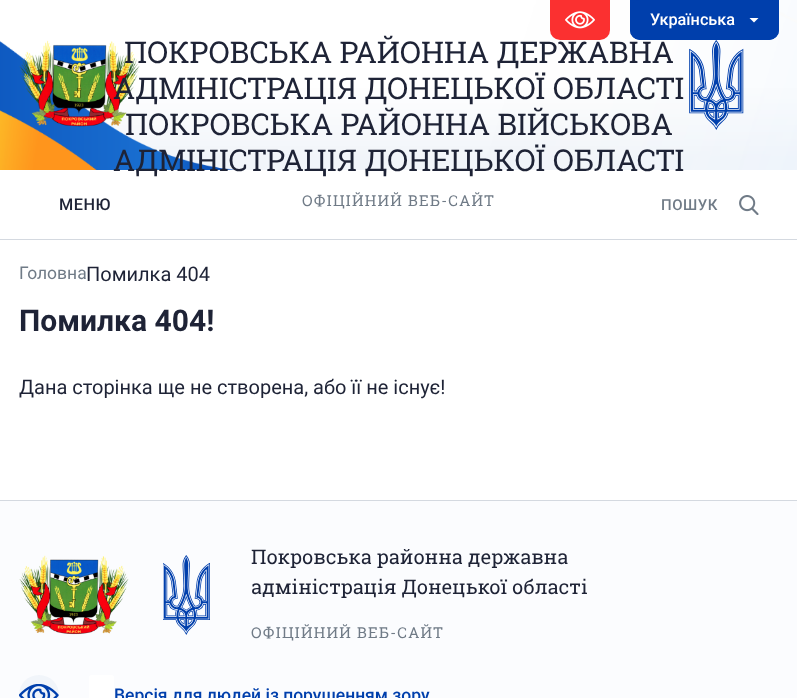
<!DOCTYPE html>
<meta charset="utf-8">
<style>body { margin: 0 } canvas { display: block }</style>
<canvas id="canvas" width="797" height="698"></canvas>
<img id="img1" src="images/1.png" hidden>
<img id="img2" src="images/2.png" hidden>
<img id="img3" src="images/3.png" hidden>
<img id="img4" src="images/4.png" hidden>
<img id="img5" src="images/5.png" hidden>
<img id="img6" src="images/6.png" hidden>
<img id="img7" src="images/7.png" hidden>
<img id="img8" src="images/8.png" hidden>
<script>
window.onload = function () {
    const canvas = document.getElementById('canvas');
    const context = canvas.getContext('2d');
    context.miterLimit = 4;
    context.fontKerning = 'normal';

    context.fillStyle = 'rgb(255, 255, 255)';
    context.fillRect(0, 0, 797, 698);
    context.drawImage(document.getElementById('img1'), 0, 0, 797, 170);
    context.fillStyle = 'rgb(251, 48, 48)';
    context.beginPath();
    context.roundRect(550, 0, 60, 40, [0, 0, 10, 10]);
    context.fill();
    context.drawImage(document.getElementById('img2'), 565, 11, 30, 18);
    context.fillStyle = 'rgb(0, 63, 172)';
    context.beginPath();
    context.roundRect(630, 0, 149, 40, [0, 0, 10, 10]);
    context.fill();
    context.beginPath();
    context.roundRect(630, 0, 149, 40, 10);
    context.fill();
    context.save();
    context.beginPath();
    context.rect(749, 18, 10, 5);
    context.clip();
    context.fillStyle = 'rgb(255, 255, 255)';
    context.beginPath();
    context.moveTo(749, 17.5);
    context.lineTo(754, 22.5);
    context.lineTo(759, 17.5);
    context.closePath();
    context.fill();
    context.restore();
    context.drawImage(document.getElementById('img3'), 19, 40, 121, 87);
    context.drawImage(document.getElementById('img4'), 689, 40, 55, 90);
    context.fillStyle = 'rgb(212, 217, 224)';
    context.fillRect(0, 239, 797, 1);
    context.drawImage(document.getElementById('img5'), 739, 195, 20, 20);
    context.fillStyle = 'rgb(251, 252, 254)';
    context.fillRect(0, 501, 797, 197);
    context.fillStyle = 'rgb(212, 217, 224)';
    context.fillRect(0, 500, 797, 1);
    context.drawImage(document.getElementById('img6'), 19, 555, 110, 80);
    context.drawImage(document.getElementById('img7'), 163, 555, 47, 80);
    context.fillStyle = 'rgb(241, 245, 250)';
    context.beginPath();
    context.arc(39, 695, 20, 0, 2 * Math.PI);
    context.fill();
    context.drawImage(document.getElementById('img8'), 19, 684, 40, 14);
    context.fillStyle = 'rgb(255, 255, 255)';
    context.beginPath();
    context.roundRect(89, 675, 25, 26, 2.5);
    context.fill();
    context.font = '500 16.25px Roboto';
    context.fillText('Українська', 650, 25);
    context.font = '30px Roboto Slab';
    context.fillStyle = 'rgb(30, 35, 54)';
    context.fillText('ПОКРОВСЬКА РАЙОННА ДЕРЖАВНА', 124, 63);
    context.fillText('АДМІНІСТРАЦІЯ ДОНЕЦЬКОЇ ОБЛАСТІ', 113, 99);
    context.fillText('ПОКРОВСЬКА РАЙОННА ВІЙСЬКОВА', 125, 135);
    context.fillText('АДМІНІСТРАЦІЯ ДОНЕЦЬКОЇ ОБЛАСТІ', 113, 171);
    context.letterSpacing = '1.25px';
    context.font = '15px Roboto Slab';
    context.fillStyle = 'rgb(112, 123, 135)';
    context.fillText('ОФІЦІЙНИЙ ВЕБ-САЙТ', 302, 206);
    context.letterSpacing = '0.5px';
    context.font = '500 16.25px Roboto';
    context.fillStyle = 'rgb(30, 35, 54)';
    context.fillText('МЕНЮ', 59, 210);
    context.font = '500 15px Roboto';
    context.fillStyle = 'rgb(112, 123, 135)';
    context.fillText('ПОШУК', 661, 210);
    context.letterSpacing = '0px';
    context.font = '17.5px Roboto';
    context.fillText('Головна', 19, 279);
    context.font = '20px Roboto';
    context.fillStyle = 'rgb(30, 35, 54)';
    context.fillText('Помилка 404', 86, 281);
    context.font = 'bold 30px Roboto';
    context.fillText('Помилка 404!', 19, 331);
    context.font = '20px Roboto';
    context.fillText('Дана сторінка ще не створена, або її не існує!', 19, 394);
    context.font = '20px Roboto Slab';
    context.fillText('Покровська районна державна', 251, 564);
    context.fillText('адміністрація Донецької області', 251, 594);
    context.letterSpacing = '1.25px';
    context.font = '15px Roboto Slab';
    context.fillStyle = 'rgb(112, 123, 135)';
    context.fillText('ОФІЦІЙНИЙ ВЕБ-САЙТ', 251, 638);
    context.letterSpacing = '0px';
    context.font = '500 17.5px Roboto';
    context.fillStyle = 'rgb(0, 63, 172)';
    context.fillText('Версія для людей із порушенням зору', 114, 701);
};
</script>
